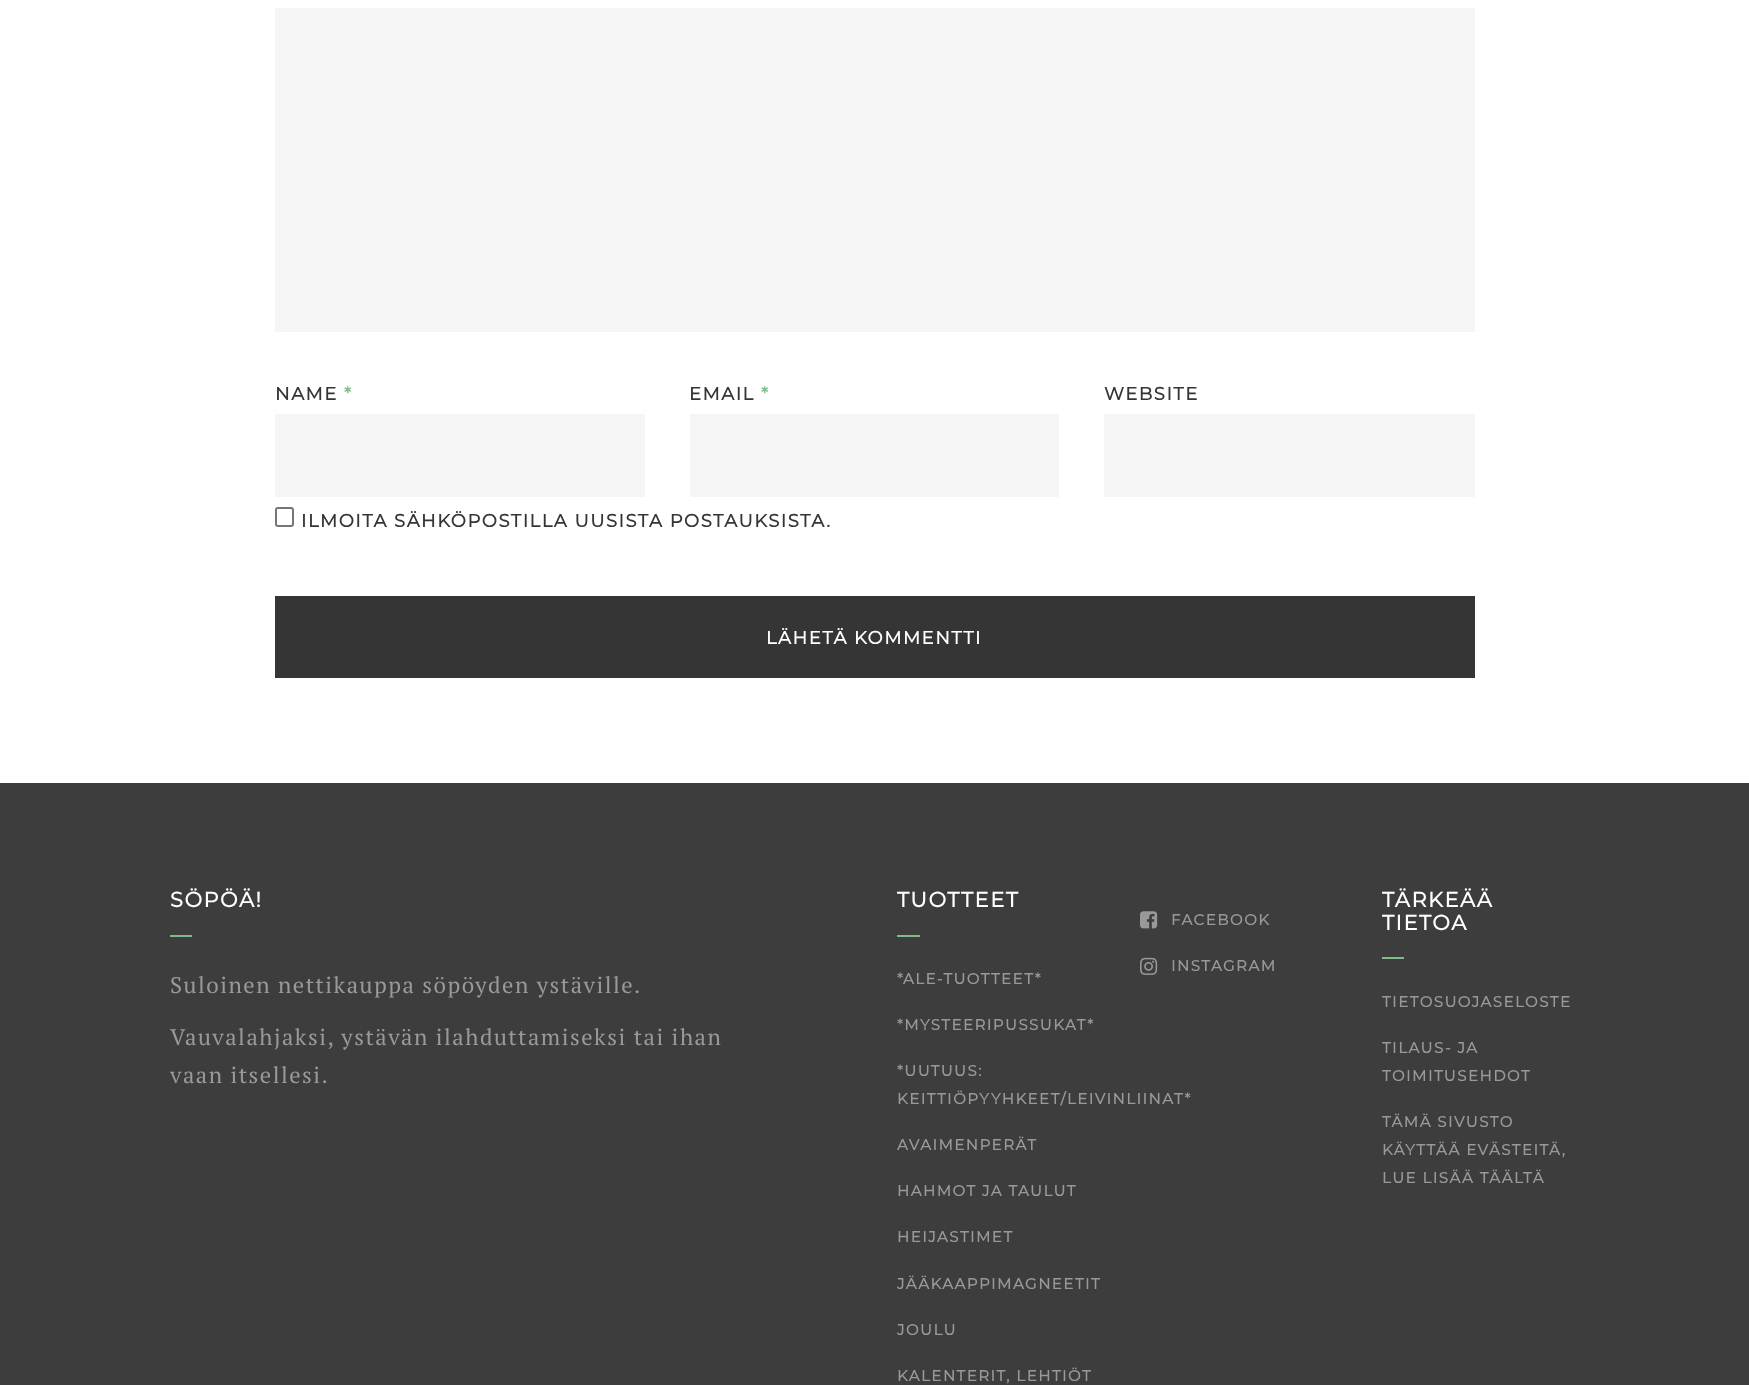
<!DOCTYPE html>
<meta charset="utf-8">
<style>body { margin: 0 } canvas { display: block }</style>
<canvas id="canvas" width="1749" height="1385"></canvas>
<img id="img1" src="images/1.png" hidden>
<img id="img2" src="images/2.png" hidden>
<script>
window.onload = function () {
    const canvas = document.getElementById('canvas');
    const context = canvas.getContext('2d');
    context.miterLimit = 4;
    context.fontKerning = 'normal';

    context.fillStyle = 'rgb(255, 255, 255)';
    context.fillRect(0, 0, 1749, 1385);
    context.fillStyle = 'rgb(245, 245, 245)';
    context.fillRect(275, 8, 1200, 324);
    context.fillRect(275, 414, 370, 83);
    context.fillRect(690, 414, 369, 83);
    context.fillRect(1104, 414, 371, 83);
    context.beginPath();
    context.roundRect(276, 508, 17, 18, 2);
    context.strokeStyle = 'rgb(118, 118, 118)';
    context.lineWidth = 2;
    context.stroke();
    context.fillStyle = 'rgb(53, 53, 53)';
    context.fillRect(275, 596, 1200, 82);
    context.fillStyle = 'rgb(61, 61, 61)';
    context.fillRect(0, 783, 1749, 602);
    context.fillStyle = 'rgb(128, 188, 137)';
    context.fillRect(170, 935, 22, 2);
    context.fillRect(897, 935, 23, 2);
    context.drawImage(document.getElementById('img1'), 1140, 911, 18, 18);
    context.drawImage(document.getElementById('img2'), 1140, 957, 18, 18);
    context.fillRect(1382, 957, 22, 2);
    context.letterSpacing = '1.5px';
    context.font = 'bold 18px Montserrat';
    context.fillStyle = 'rgb(53, 53, 53)';
    context.fillText('NAME', 275, 400);
    context.fillStyle = 'rgb(128, 188, 137)';
    context.fillText('*', 344, 400);
    context.fillStyle = 'rgb(53, 53, 53)';
    context.fillText('EMAIL', 689, 400);
    context.fillStyle = 'rgb(128, 188, 137)';
    context.fillText('*', 761, 400);
    context.fillStyle = 'rgb(53, 53, 53)';
    context.fillText('WEBSITE', 1104, 400);
    context.fillText('ILMOITA SÄHKÖPOSTILLA UUSISTA POSTAUKSISTA.', 301, 527);
    context.fillStyle = 'rgb(255, 255, 255)';
    context.fillText('LÄHETÄ KOMMENTTI', 766, 644);
    context.font = 'bold 21px Montserrat';
    context.fillText('SÖPÖÄ!', 170, 907);
    context.font = '22.5px PT Serif';
    context.fillStyle = 'rgb(153, 153, 153)';
    context.fillText('Suloinen nettikauppa söpöyden ystäville.', 170, 993);
    context.fillText('Vauvalahjaksi, ystävän ilahduttamiseksi tai ihan', 170, 1045);
    context.fillText('vaan itsellesi.', 170, 1083);
    context.font = 'bold 21px Montserrat';
    context.fillStyle = 'rgb(255, 255, 255)';
    context.fillText('TUOTTEET', 897, 907);
    context.font = 'bold 15px Montserrat';
    context.fillStyle = 'rgb(153, 153, 153)';
    context.fillText('*ALE-TUOTTEET*', 897, 984);
    context.fillText('*MYSTEERIPUSSUKAT*', 897, 1030);
    context.fillText('*UUTUUS:', 897, 1076);
    context.fillText('KEITTIÖPYYHKEET/LEIVINLIINAT*', 897, 1104);
    context.fillText('AVAIMENPERÄT', 897, 1150);
    context.fillText('HAHMOT JA TAULUT', 897, 1196);
    context.fillText('HEIJASTIMET', 897, 1242);
    context.fillText('JÄÄKAAPPIMAGNEETIT', 897, 1289);
    context.fillText('JOULU', 897, 1335);
    context.fillText('KALENTERIT, LEHTIÖT', 897, 1381);
    context.fillText('FACEBOOK', 1171, 925);
    context.fillText('INSTAGRAM', 1171, 971);
    context.font = 'bold 21px Montserrat';
    context.fillStyle = 'rgb(255, 255, 255)';
    context.fillText('TÄRKEÄÄ', 1382, 907);
    context.fillText('TIETOA', 1382, 930);
    context.font = 'bold 15px Montserrat';
    context.fillStyle = 'rgb(153, 153, 153)';
    context.fillText('TIETOSUOJASELOSTE', 1382, 1007);
    context.fillText('TILAUS- JA', 1382, 1053);
    context.fillText('TOIMITUSEHDOT', 1382, 1081);
    context.fillText('TÄMÄ SIVUSTO', 1382, 1127);
    context.fillText('KÄYTTÄÄ EVÄSTEITÄ,', 1382, 1155);
    context.fillText('LUE LISÄÄ TÄÄLTÄ', 1382, 1183);
};
</script>
